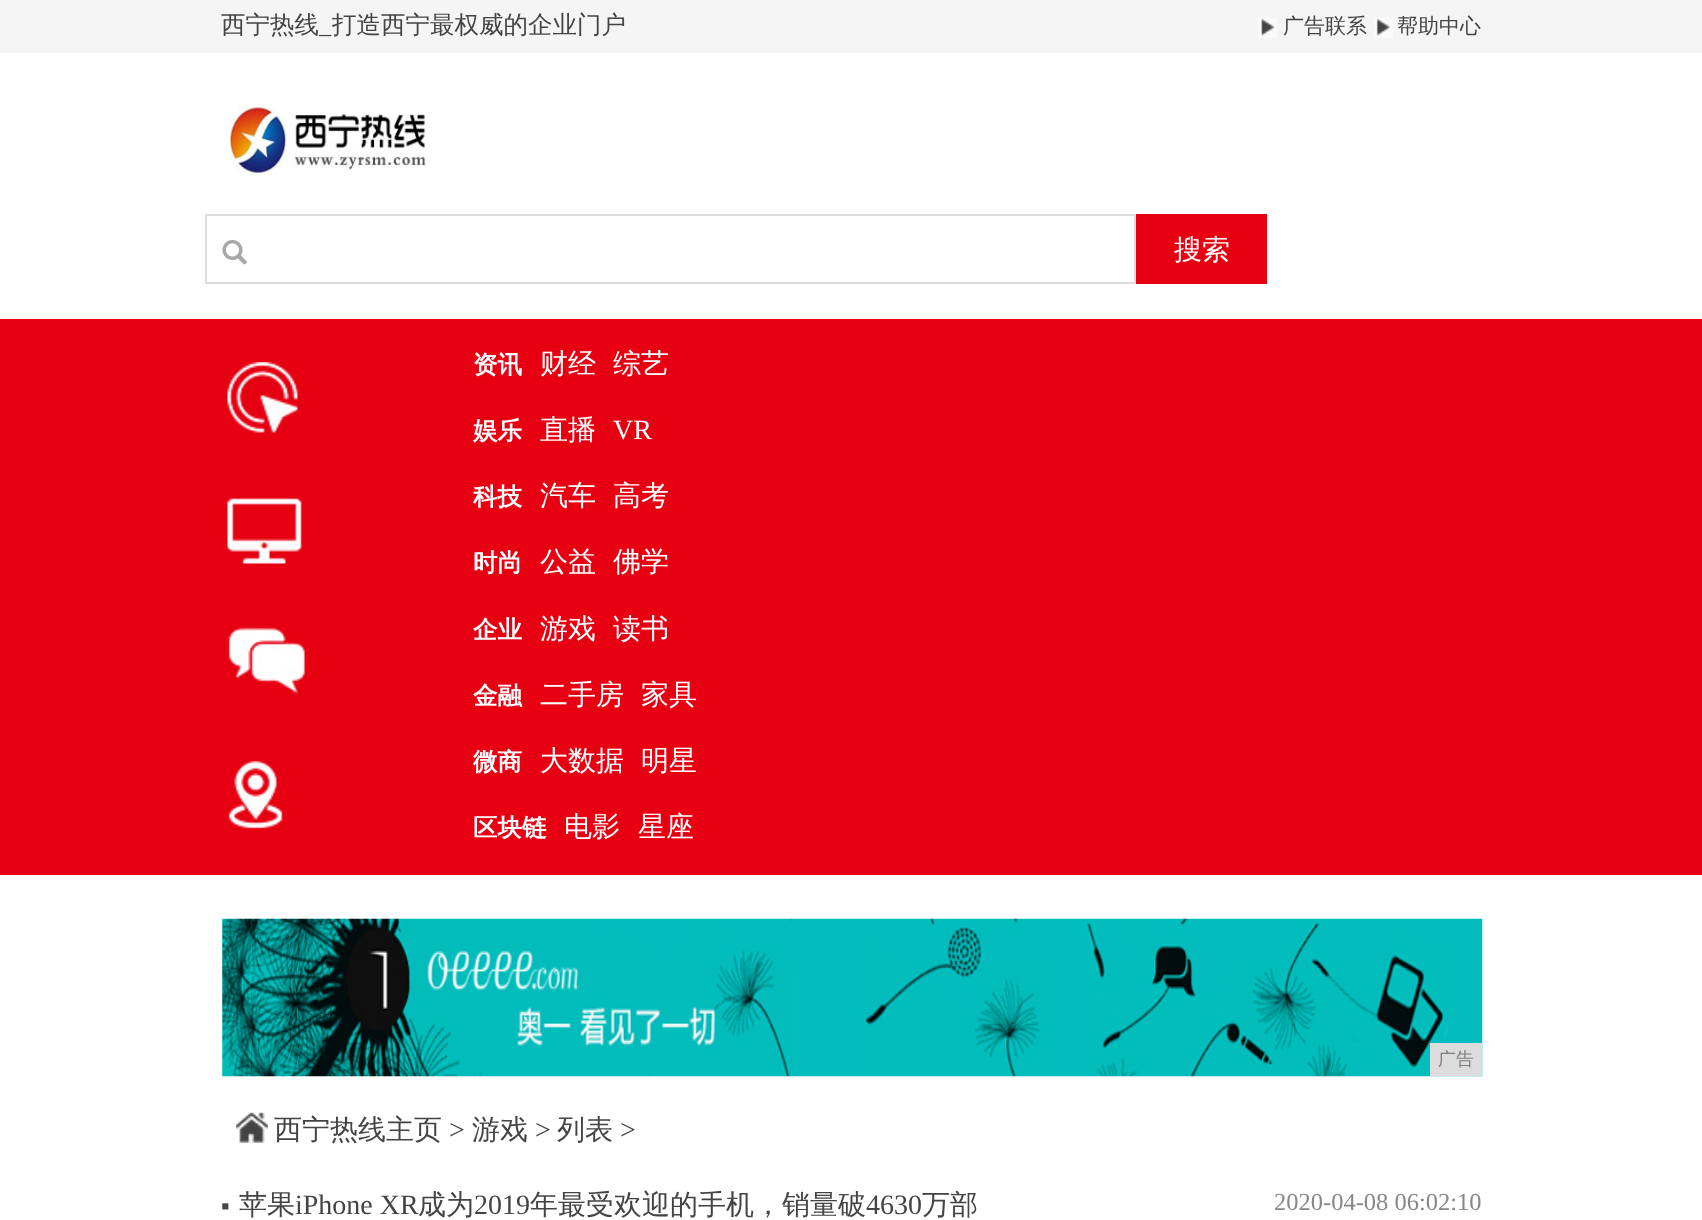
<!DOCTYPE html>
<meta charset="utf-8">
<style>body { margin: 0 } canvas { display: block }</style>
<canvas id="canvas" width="1702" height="1220"></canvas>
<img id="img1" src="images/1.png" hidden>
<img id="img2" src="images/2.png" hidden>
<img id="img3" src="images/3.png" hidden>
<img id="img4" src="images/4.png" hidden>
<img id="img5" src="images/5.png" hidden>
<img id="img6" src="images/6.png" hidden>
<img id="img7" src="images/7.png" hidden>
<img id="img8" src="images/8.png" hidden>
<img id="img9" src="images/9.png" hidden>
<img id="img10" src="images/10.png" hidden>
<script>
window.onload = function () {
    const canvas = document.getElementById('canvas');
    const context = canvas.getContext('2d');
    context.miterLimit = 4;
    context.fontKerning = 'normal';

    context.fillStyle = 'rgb(255, 255, 255)';
    context.fillRect(0, 0, 1702, 1220);
    context.fillStyle = 'rgb(245, 245, 245)';
    context.fillRect(0, 0, 1702, 53);
    context.drawImage(document.getElementById('img1'), 1258, 18, 19, 20);
    context.drawImage(document.getElementById('img2'), 1374, 18, 19, 20);
    context.drawImage(document.getElementById('img3'), 229, 105, 200, 70);
    context.strokeStyle = 'rgb(221, 221, 221)';
    context.lineWidth = 2;
    context.strokeRect(206, 215, 929, 68);
    context.fillStyle = 'rgb(230, 0, 18)';
    context.fillRect(1136, 214, 131, 70);
    context.drawImage(document.getElementById('img4'), 222, 240, 25, 25);
    context.fillRect(0, 319, 1702, 556);
    context.drawImage(document.getElementById('img5'), 222, 362, 76, 71);
    context.drawImage(document.getElementById('img6'), 227, 498, 75, 66);
    context.drawImage(document.getElementById('img7'), 228, 627, 77, 67);
    context.drawImage(document.getElementById('img8'), 228, 760, 55, 69);
    context.drawImage(document.getElementById('img9'), 222, 918, 1261, 159);
    context.fillStyle = 'rgb(221, 221, 221)';
    context.fillRect(1430, 1043, 52, 33);
    context.drawImage(document.getElementById('img10'), 236, 1112, 32, 31);
    context.font = '500 24.5px WenQuanYi Zen Hei';
    context.fillStyle = 'rgb(68, 68, 68)';
    context.fillText('西宁热线', 221, 33);
    context.font = '24.5px Liberation Serif';
    context.fillText('_', 319, 33);
    context.font = '500 24.5px WenQuanYi Zen Hei';
    context.fillText('打造西宁最权威的企业门户', 332, 33);
    context.font = '500 21px WenQuanYi Zen Hei';
    context.fillText('广告联系', 1283, 33);
    context.fillText('帮助中心', 1397, 33);
    context.font = '500 28px WenQuanYi Zen Hei';
    context.fillStyle = 'rgb(255, 255, 255)';
    context.fillText('搜索', 1174, 259);
    context.font = 'bold 24.5px WenQuanYi Zen Hei';
    context.fillText('资讯', 473, 373);
    context.font = '500 28px WenQuanYi Zen Hei';
    context.fillText('财经', 540, 373);
    context.fillText('综艺', 613, 373);
    context.font = 'bold 24.5px WenQuanYi Zen Hei';
    context.fillText('娱乐', 473, 439);
    context.font = '500 28px WenQuanYi Zen Hei';
    context.fillText('直播', 540, 439);
    context.font = '28px Liberation Serif';
    context.fillText('VR', 613, 439);
    context.font = 'bold 24.5px WenQuanYi Zen Hei';
    context.fillText('科技', 473, 505);
    context.font = '500 28px WenQuanYi Zen Hei';
    context.fillText('汽车', 540, 505);
    context.fillText('高考', 613, 505);
    context.font = 'bold 24.5px WenQuanYi Zen Hei';
    context.fillText('时尚', 473, 571);
    context.font = '500 28px WenQuanYi Zen Hei';
    context.fillText('公益', 540, 571);
    context.fillText('佛学', 613, 571);
    context.font = 'bold 24.5px WenQuanYi Zen Hei';
    context.fillText('企业', 473, 638);
    context.font = '500 28px WenQuanYi Zen Hei';
    context.fillText('游戏', 540, 638);
    context.fillText('读书', 613, 638);
    context.font = 'bold 24.5px WenQuanYi Zen Hei';
    context.fillText('金融', 473, 704);
    context.font = '500 28px WenQuanYi Zen Hei';
    context.fillText('二手房', 540, 704);
    context.fillText('家具', 641, 704);
    context.font = 'bold 24.5px WenQuanYi Zen Hei';
    context.fillText('微商', 473, 770);
    context.font = '500 28px WenQuanYi Zen Hei';
    context.fillText('大数据', 540, 770);
    context.fillText('明星', 641, 770);
    context.font = 'bold 24.5px WenQuanYi Zen Hei';
    context.fillText('区块链', 473, 836);
    context.font = '500 28px WenQuanYi Zen Hei';
    context.fillText('电影', 564, 836);
    context.fillText('星座', 638, 836);
    context.font = '500 18px WenQuanYi Zen Hei';
    context.fillStyle = 'rgb(128, 128, 128)';
    context.fillText('广告', 1438, 1065);
    context.font = '500 28px WenQuanYi Zen Hei';
    context.fillStyle = 'rgb(68, 68, 68)';
    context.fillText('西宁热线主页', 274, 1139);
    context.font = '28px Liberation Serif';
    context.fillText('>', 449, 1139);
    context.font = '500 28px WenQuanYi Zen Hei';
    context.fillText('游戏', 472, 1139);
    context.font = '28px Liberation Serif';
    context.fillText('>', 535, 1139);
    context.font = '500 28px WenQuanYi Zen Hei';
    context.fillText('列表', 557, 1139);
    context.font = '28px Liberation Serif';
    context.fillText('>', 620, 1139);
    context.font = '24.5px Liberation Serif';
    context.fillText('▪', 221, 1214);
    context.font = '500 28px WenQuanYi Zen Hei';
    context.fillText('苹果', 239, 1214);
    context.font = '28px Liberation Serif';
    context.fillText('iPhone XR', 295, 1214);
    context.font = '500 28px WenQuanYi Zen Hei';
    context.fillText('成为', 418, 1214);
    context.font = '28px Liberation Serif';
    context.fillText('2019', 474, 1214);
    context.font = '500 28px WenQuanYi Zen Hei';
    context.fillText('年最受欢迎的手机，销量破', 530, 1214);
    context.font = '28px Liberation Serif';
    context.fillText('4630', 866, 1214);
    context.font = '500 28px WenQuanYi Zen Hei';
    context.fillText('万部', 922, 1214);
    context.font = '24.5px Liberation Serif';
    context.fillStyle = 'rgb(136, 136, 136)';
    context.fillText('2020-04-08 06:02:10', 1274, 1210);
};
</script>
